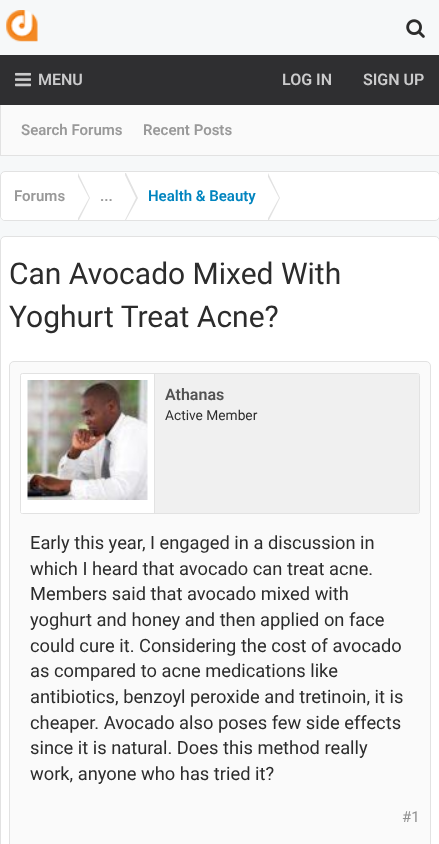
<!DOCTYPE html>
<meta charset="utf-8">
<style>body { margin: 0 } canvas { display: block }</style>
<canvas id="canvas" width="439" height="844"></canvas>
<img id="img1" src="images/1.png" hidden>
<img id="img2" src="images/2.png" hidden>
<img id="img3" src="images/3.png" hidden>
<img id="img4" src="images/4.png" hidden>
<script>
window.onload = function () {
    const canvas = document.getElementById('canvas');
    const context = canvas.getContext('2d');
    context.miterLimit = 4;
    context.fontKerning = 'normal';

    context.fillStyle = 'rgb(246, 248, 249)';
    context.fillRect(0, 0, 439, 844);
    context.drawImage(document.getElementById('img1'), 6, 10, 32, 32);
    context.drawImage(document.getElementById('img2'), 406, 19, 19, 19);
    context.fillStyle = 'rgb(47, 47, 49)';
    context.fillRect(0, 55, 439, 50);
    context.drawImage(document.getElementById('img3'), 15, 72, 16, 15);
    context.fillStyle = 'rgb(250, 250, 250)';
    context.fillRect(1, 105, 438, 50);
    context.fillStyle = 'rgb(226, 226, 226)';
    context.fillRect(0, 155, 439, 1);
    context.fillRect(0, 105, 1, 51);
    context.fillStyle = 'rgb(255, 255, 255)';
    context.beginPath();
    context.roundRect(0.5, 171.5, 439, 49, 4.5);
    context.fill();
    context.strokeStyle = 'rgb(226, 226, 226)';
    context.stroke();
    context.save();
    context.beginPath();
    context.roundRect(1, 173, 438, 47, 4);
    context.clip();
    context.beginPath();
    context.roundRect(1, 173, 77, 48, [5, 0, 0, 5]);
    context.fill();
    context.restore();
    context.fillStyle = 'rgb(226, 226, 226)';
    context.beginPath();
    context.moveTo(78, 173);
    context.lineTo(90, 198);
    context.lineTo(79, 220);
    context.lineTo(78, 220);
    context.closePath();
    context.fill();
    context.fillStyle = 'rgb(255, 255, 255)';
    context.beginPath();
    context.moveTo(76, 173);
    context.lineTo(89, 198);
    context.lineTo(77, 220);
    context.lineTo(76, 220);
    context.closePath();
    context.fill();
    context.fillStyle = 'rgb(226, 226, 226)';
    context.beginPath();
    context.moveTo(126, 173);
    context.lineTo(138, 198);
    context.lineTo(126, 220);
    context.lineTo(125, 220);
    context.lineTo(125, 173);
    context.closePath();
    context.fill();
    context.fillStyle = 'rgb(255, 255, 255)';
    context.beginPath();
    context.moveTo(124, 173);
    context.lineTo(136, 198);
    context.lineTo(125, 220);
    context.lineTo(124, 220);
    context.closePath();
    context.fill();
    context.fillStyle = 'rgb(226, 226, 226)';
    context.beginPath();
    context.moveTo(268, 173);
    context.lineTo(280, 198);
    context.lineTo(269, 220);
    context.lineTo(268, 220);
    context.closePath();
    context.fill();
    context.fillStyle = 'rgb(255, 255, 255)';
    context.beginPath();
    context.moveTo(266, 173);
    context.lineTo(279, 198);
    context.lineTo(267, 220);
    context.lineTo(266, 220);
    context.closePath();
    context.fill();
    context.beginPath();
    context.roundRect(0.5, 236.5, 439, 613, 4.5);
    context.fill();
    context.stroke();
    context.fillStyle = 'rgb(250, 250, 250)';
    context.beginPath();
    context.roundRect(9.5, 361.5, 421, 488, 4.5);
    context.fill();
    context.stroke();
    context.fillStyle = 'rgb(255, 255, 255)';
    context.beginPath();
    context.roundRect(20.5, 373.5, 399, 140, 2);
    context.fill();
    context.stroke();
    context.beginPath();
    context.roundRect(21, 374, 133, 139, [2.5, 2.5, 0, 1]);
    context.fill();
    context.drawImage(document.getElementById('img4'), 27, 380, 121, 120);
    context.fillStyle = 'rgb(240, 240, 240)';
    context.beginPath();
    context.roundRect(155, 374, 264, 139, [0, 1, 1, 0]);
    context.fill();
    context.fillStyle = 'rgb(226, 226, 226)';
    context.fillRect(154, 374, 1, 139);
    context.font = '600 16px Roboto';
    context.fillStyle = 'rgb(203, 203, 204)';
    context.fillText('MENU', 38, 85);
    context.font = '600 15px Roboto';
    context.fillStyle = 'rgb(153, 153, 153)';
    context.fillText('Search Forums', 21, 135);
    context.fillText('Recent Posts', 143, 135);
    context.font = '600 16px Roboto';
    context.fillStyle = 'rgb(203, 203, 204)';
    context.fillText('LOG IN', 282, 85);
    context.fillText('SIGN UP', 363, 85);
    context.font = '600 15px Roboto';
    context.fillStyle = 'rgb(153, 153, 153)';
    context.fillText('Forums', 14, 201);
    context.fillText('...', 100, 201);
    context.fillStyle = 'rgb(0, 132, 191)';
    context.fillText('Health & Beauty', 148, 201);
    context.font = '30px Roboto';
    context.fillStyle = 'rgb(44, 44, 44)';
    context.fillText('Can Avocado Mixed With', 9, 284);
    context.fillText('Yoghurt Treat Acne?', 9, 327);
    context.font = '600 16px Roboto';
    context.fillStyle = 'rgb(83, 83, 83)';
    context.fillText('Athanas', 165, 400);
    context.font = '13.75px Roboto';
    context.fillStyle = 'rgb(44, 44, 44)';
    context.fillText('Active Member', 165, 420);
    context.font = '18.3px Roboto';
    context.fillText('Early this year, I engaged in a discussion in', 30, 549);
    context.fillText('which I heard that avocado can treat acne.', 30, 575);
    context.fillText('Members said that avocado mixed with', 30, 600);
    context.fillText('yoghurt and honey and then applied on face', 30, 626);
    context.fillText('could cure it. Considering the cost of avocado', 30, 652);
    context.fillText('as compared to acne medications like', 30, 677);
    context.fillText('antibiotics, benzoyl peroxide and tretinoin, it is', 30, 703);
    context.fillText('cheaper. Avocado also poses few side effects', 30, 729);
    context.fillText('since it is natural. Does this method really', 30, 754);
    context.fillText('work, anyone who has tried it?', 30, 780);
    context.font = '15px Roboto';
    context.fillStyle = 'rgb(144, 144, 144)';
    context.fillText('#1', 402, 822);
};
</script>
